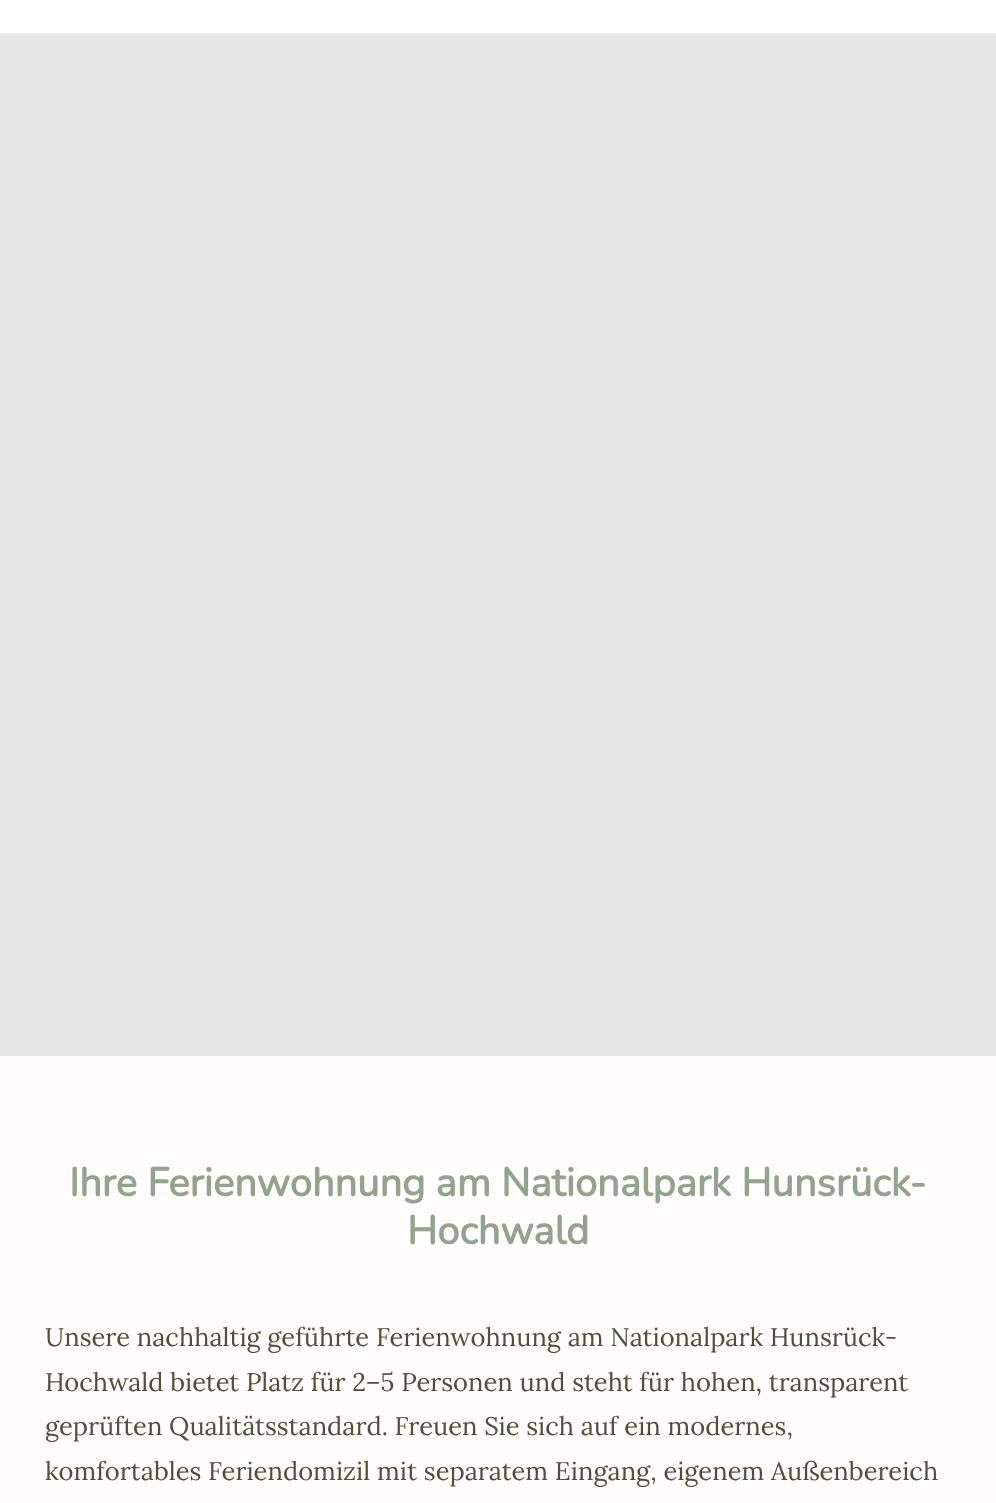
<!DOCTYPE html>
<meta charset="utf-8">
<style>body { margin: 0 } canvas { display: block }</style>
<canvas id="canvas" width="996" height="1503"></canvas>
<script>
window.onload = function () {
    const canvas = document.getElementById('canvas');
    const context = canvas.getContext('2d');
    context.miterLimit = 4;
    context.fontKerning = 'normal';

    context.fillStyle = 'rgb(254, 253, 251)';
    context.fillRect(0, 0, 996, 1503);
    context.fillStyle = 'rgb(255, 255, 255)';
    context.fillRect(0, 0, 996, 33);
    context.fillStyle = 'rgb(235, 235, 237)';
    context.fillRect(0, 33, 996, 2);
    context.fillStyle = 'rgb(230, 230, 230)';
    context.fillRect(0, 35, 996, 1021);
    context.font = 'bold 39.8px Nunito';
    context.fillStyle = 'rgb(148, 163, 144)';
    context.fillText('Ihre Ferienwohnung am Nationalpark Hunsrück-', 69, 1196);
    context.fillText('Hochwald', 407, 1244);
    context.font = '25.5px Lora';
    context.fillStyle = 'rgb(81, 78, 63)';
    context.fillText('Unsere nachhaltig geführte Ferienwohnung am Nationalpark Hunsrück-', 45, 1346);
    context.fillText('Hochwald bietet Platz für 2–5 Personen und steht für hohen, transparent', 45, 1391);
    context.fillText('geprüften Qualitätsstandard. Freuen Sie sich auf ein modernes,', 45, 1435);
    context.fillText('komfortables Feriendomizil mit separatem Eingang, eigenem Außenbereich', 45, 1480);
};
</script>
